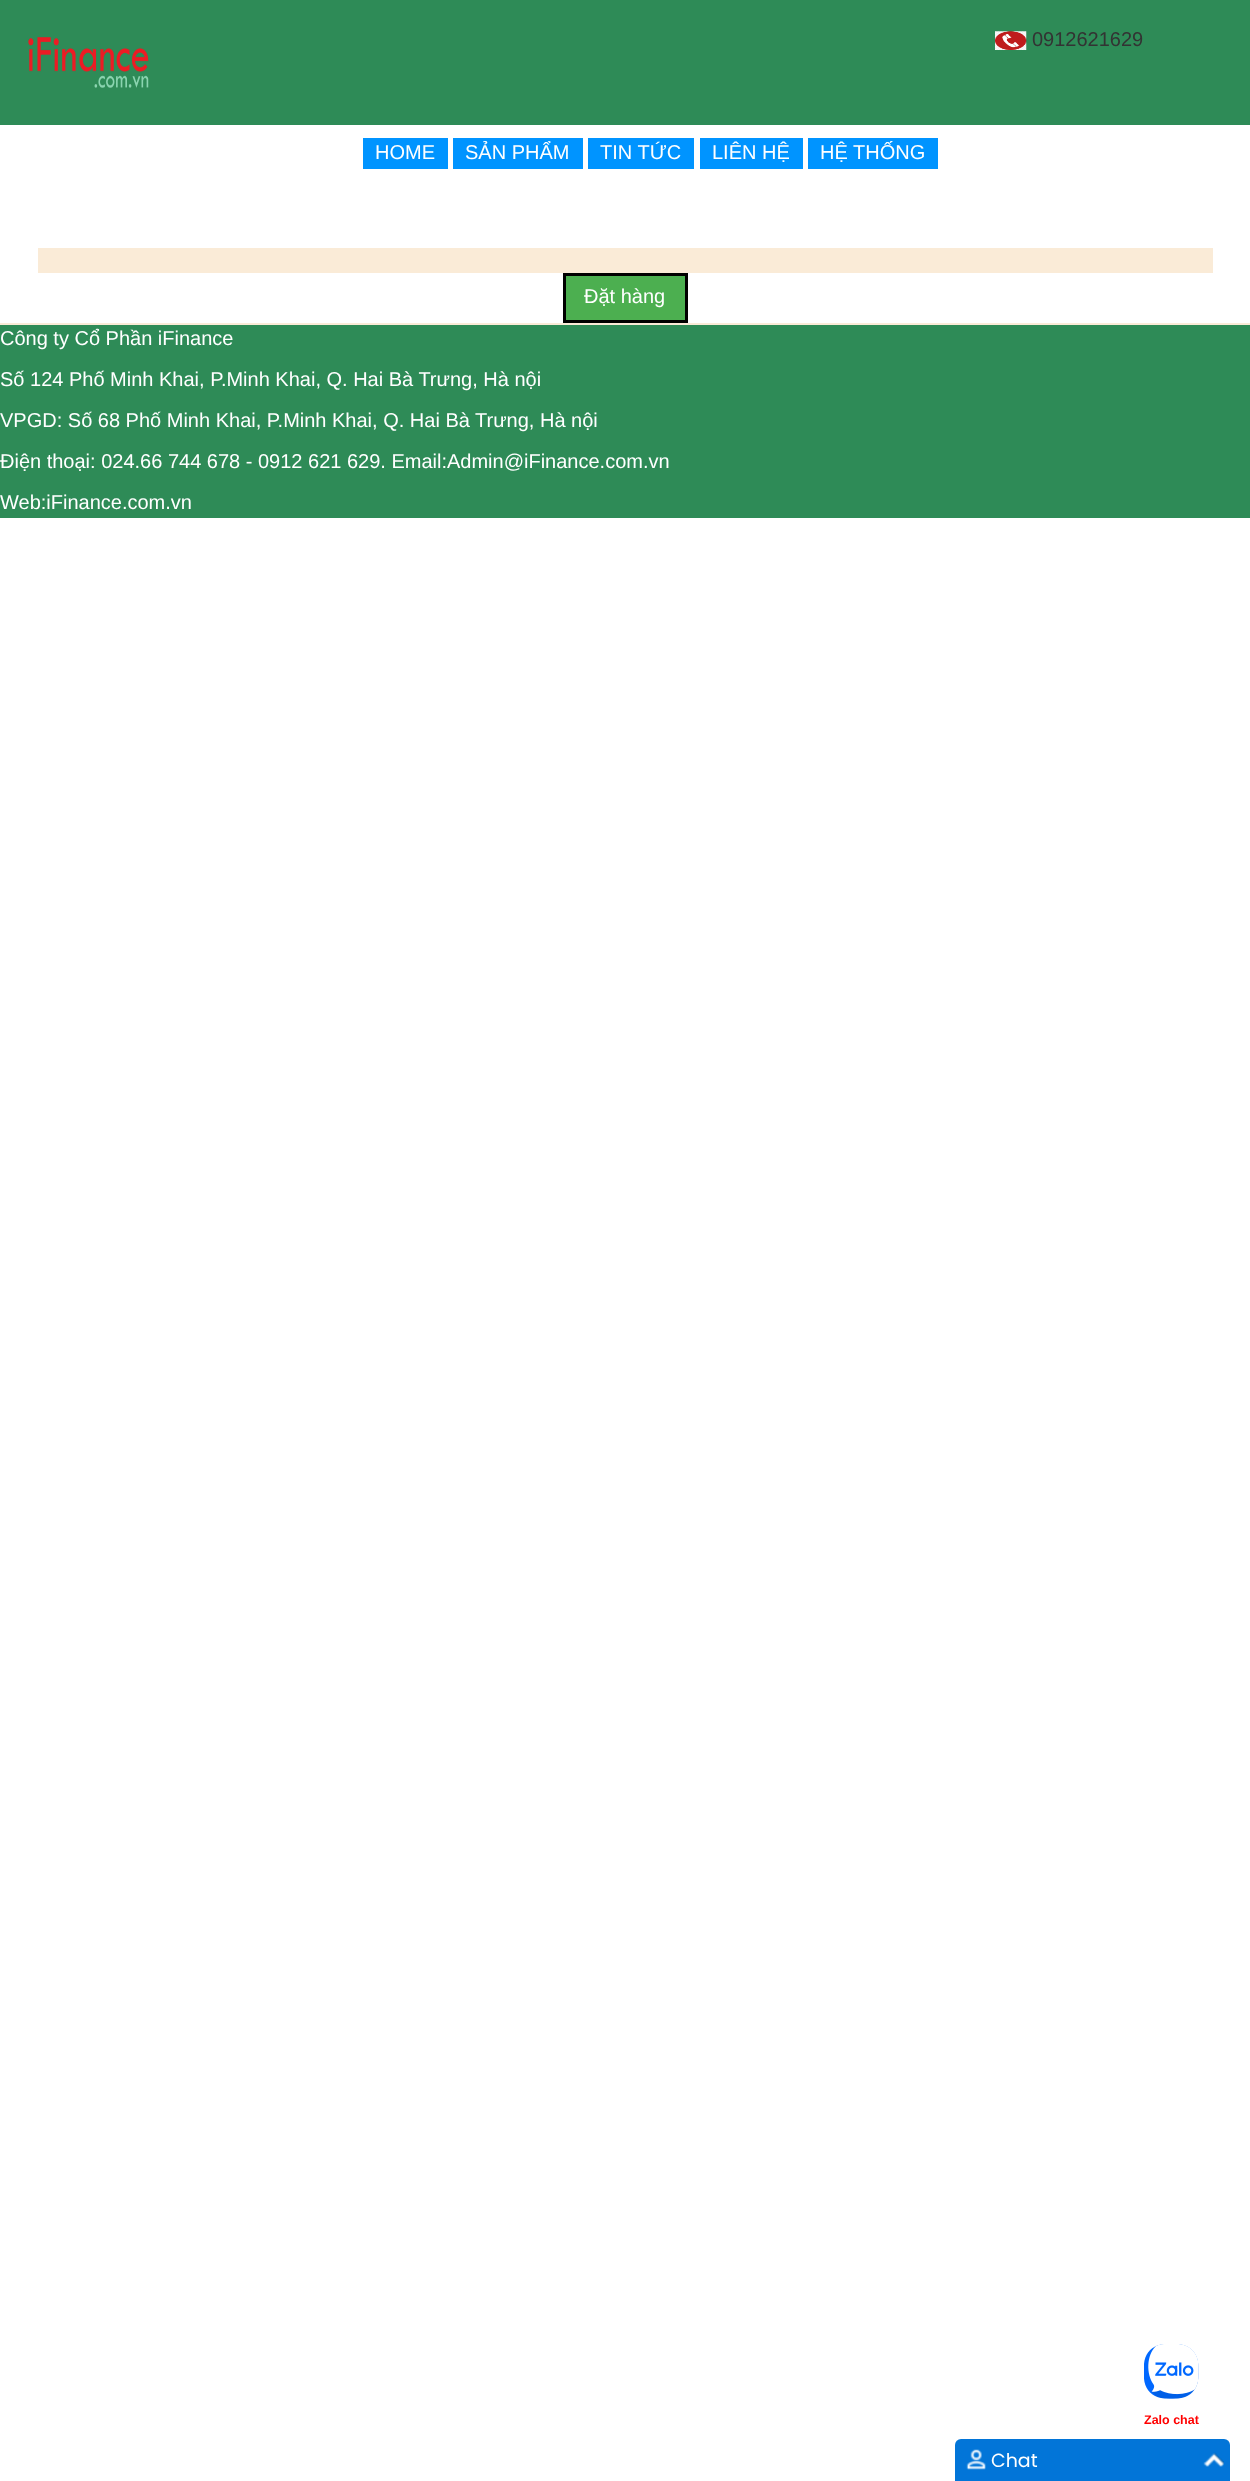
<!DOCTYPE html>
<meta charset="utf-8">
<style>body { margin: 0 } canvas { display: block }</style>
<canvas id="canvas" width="1250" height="2481"></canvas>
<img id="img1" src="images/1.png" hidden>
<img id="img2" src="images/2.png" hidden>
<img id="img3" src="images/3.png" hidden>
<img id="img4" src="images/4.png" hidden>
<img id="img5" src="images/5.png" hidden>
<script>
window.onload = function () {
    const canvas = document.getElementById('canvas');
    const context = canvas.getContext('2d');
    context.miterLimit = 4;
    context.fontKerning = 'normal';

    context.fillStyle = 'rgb(255, 255, 255)';
    context.fillRect(0, 0, 1250, 2481);
    context.fillStyle = 'rgb(46, 139, 87)';
    context.fillRect(0, 0, 1250, 125);
    context.drawImage(document.getElementById('img1'), 28, 37, 121, 51);
    context.drawImage(document.getElementById('img2'), 995, 31, 32, 19);
    context.fillStyle = 'rgb(0, 148, 255)';
    context.fillRect(363, 138, 85, 31);
    context.fillRect(453, 138, 130, 31);
    context.fillRect(588, 138, 106, 31);
    context.fillRect(700, 138, 103, 31);
    context.fillRect(808, 138, 130, 31);
    context.fillStyle = 'rgb(250, 235, 215)';
    context.fillRect(38, 248, 1175, 25);
    context.fillStyle = 'rgb(76, 175, 80)';
    context.beginPath();
    context.rect(564.5, 274.5, 122, 47);
    context.fill();
    context.strokeStyle = 'rgb(0, 0, 0)';
    context.lineWidth = 3;
    context.stroke();
    context.drawImage(document.getElementById('img3'), 1144, 2344, 55, 55);
    context.fillStyle = 'rgb(250, 235, 215)';
    context.fillRect(0, 323, 1250, 2);
    context.fillStyle = 'rgb(46, 139, 87)';
    context.fillRect(0, 325, 1250, 193);
    context.fillStyle = 'rgb(2, 117, 216)';
    context.beginPath();
    context.roundRect(955, 2439, 275, 42, [6, 6, 0, 0]);
    context.fill();
    context.drawImage(document.getElementById('img4'), 966, 2449, 20, 21);
    context.drawImage(document.getElementById('img5'), 1203, 2452, 21, 15);
    context.font = '20px Liberation Sans';
    context.fillStyle = 'rgb(51, 51, 51)';
    context.fillText('0912621629', 1032, 46);
    context.fillStyle = 'rgb(255, 255, 255)';
    context.fillText('HOME', 375, 159);
    context.fillText('SẢN PHẨM', 465, 159);
    context.fillText('TIN TỨC', 600, 159);
    context.fillText('LIÊN HỆ', 712, 159);
    context.fillText('HỆ THỐNG', 820, 159);
    context.fillText('Đặt hàng', 584, 303);
    context.font = 'bold 12.5px Liberation Sans';
    context.fillStyle = 'rgb(255, 0, 0)';
    context.fillText('Zalo chat', 1144, 2424);
    context.font = '20px Liberation Sans';
    context.fillStyle = 'rgb(255, 255, 255)';
    context.fillText('Công ty Cổ Phần iFinance', 0, 345);
    context.fillText('Số 124 Phố Minh Khai, P.Minh Khai, Q. Hai Bà Trưng, Hà nội', 0, 386);
    context.fillText('VPGD: Số 68 Phố Minh Khai, P.Minh Khai, Q. Hai Bà Trưng, Hà nội', 0, 427);
    context.fillText('Điện thoại: 024.66 744 678 - 0912 621 629. Email:Admin@iFinance.com.vn', 0, 468);
    context.fillText('Web:iFinance.com.vn', 0, 509);
    context.font = '19px Poppins';
    context.fillText('Chat', 991, 2467);
};
</script>
